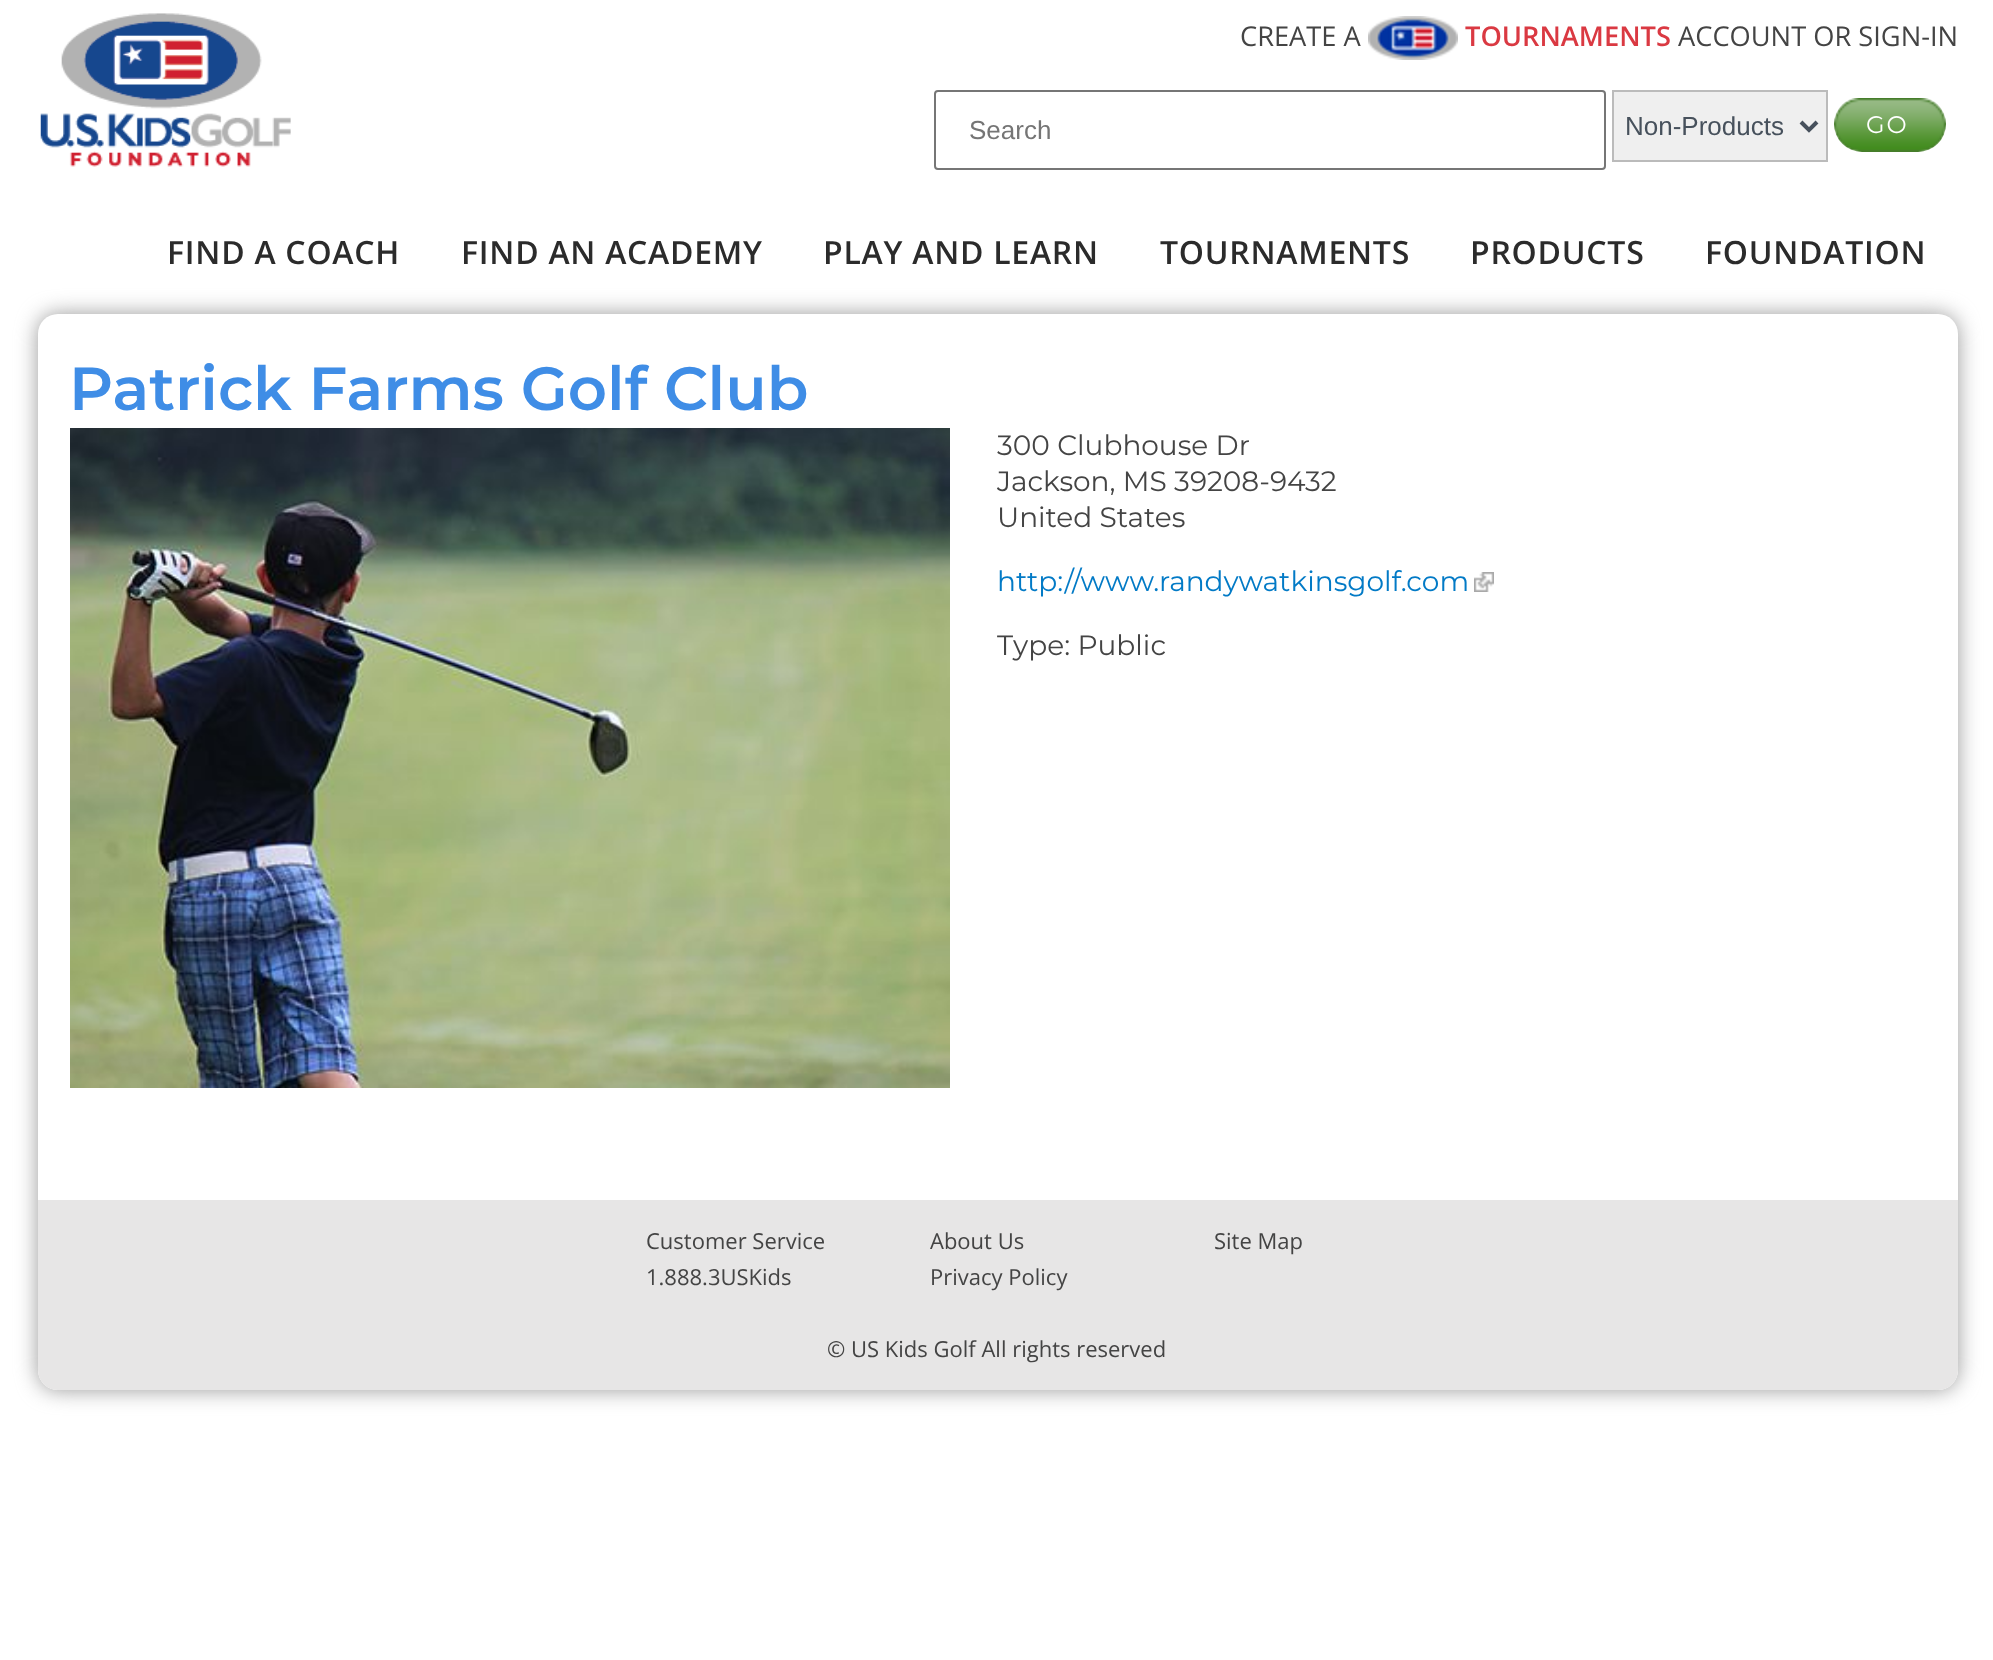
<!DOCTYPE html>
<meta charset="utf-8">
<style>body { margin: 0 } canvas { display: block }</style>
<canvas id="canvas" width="1993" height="1660"></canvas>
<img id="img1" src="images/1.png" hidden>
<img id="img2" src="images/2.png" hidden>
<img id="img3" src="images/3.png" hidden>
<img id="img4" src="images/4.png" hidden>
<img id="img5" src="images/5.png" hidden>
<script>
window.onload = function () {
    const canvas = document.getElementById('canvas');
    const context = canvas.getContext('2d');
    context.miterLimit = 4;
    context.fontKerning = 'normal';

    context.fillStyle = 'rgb(255, 255, 255)';
    context.fillRect(0, 0, 1993, 1660);
    context.drawImage(document.getElementById('img1'), 40, 13, 251, 154);
    context.drawImage(document.getElementById('img2'), 1368, 16, 90, 44);
    context.beginPath();
    context.roundRect(935, 91, 670, 78, 3);
    context.strokeStyle = 'rgb(118, 118, 118)';
    context.lineWidth = 2;
    context.stroke();
    context.fillStyle = 'rgb(239, 239, 239)';
    context.beginPath();
    context.rect(1613, 91, 214, 70);
    context.fill();
    context.strokeStyle = 'rgb(187, 187, 187)';
    context.stroke();
    context.beginPath();
    context.moveTo(1801, 122);
    context.lineTo(1809, 130);
    context.lineTo(1817, 122);
    context.strokeStyle = 'rgb(71, 81, 92)';
    context.lineWidth = 4;
    context.stroke();
    context.drawImage(document.getElementById('img3'), 1834, 98, 112, 54);
    context.fillStyle = 'rgb(153, 153, 153)';
    context.filter = 'blur(10.5px)';
    context.beginPath();
    context.roundRect(38, 314, 1920, 1076, 20);
    context.fill();
    context.filter = 'none';
    context.fillStyle = 'rgb(255, 255, 255)';
    context.beginPath();
    context.roundRect(38, 314, 1920, 1076, 20);
    context.fill();
    context.drawImage(document.getElementById('img4'), 70, 428, 880, 660);
    context.drawImage(document.getElementById('img5'), 1474, 572, 20, 20);
    context.fillStyle = 'rgb(231, 230, 230)';
    context.beginPath();
    context.roundRect(38, 1200, 1920, 190, [0, 0, 20, 20]);
    context.fill();
    context.font = '27.25px Open Sans';
    context.fillStyle = 'rgb(68, 68, 68)';
    context.fillText('CREATE A', 1240, 46);
    context.font = '600 27.25px Open Sans';
    context.fillStyle = 'rgb(218, 57, 66)';
    context.fillText('TOURNAMENTS', 1465, 46);
    context.font = '27.25px Open Sans';
    context.fillStyle = 'rgb(68, 68, 68)';
    context.fillText('ACCOUNT OR SIGN-IN', 1678, 46);
    context.font = '26px Liberation Sans';
    context.fillStyle = 'rgb(117, 117, 117)';
    context.fillText('Search', 969, 139);
    context.fillStyle = 'rgb(71, 81, 92)';
    context.fillText('Non-Products', 1625, 135);
    context.letterSpacing = '2px';
    context.font = '24px Montserrat';
    context.fillStyle = 'rgb(255, 255, 255)';
    context.fillText('GO', 1866, 133);
    context.letterSpacing = '0.75px';
    context.font = '600 32px Open Sans';
    context.fillStyle = 'rgb(43, 43, 43)';
    context.fillText('FIND A COACH', 167, 264);
    context.fillText('FIND AN ACADEMY', 461, 264);
    context.fillText('PLAY AND LEARN', 823, 264);
    context.fillText('TOURNAMENTS', 1160, 264);
    context.fillText('PRODUCTS', 1470, 264);
    context.fillText('FOUNDATION', 1705, 264);
    context.letterSpacing = '0px';
    context.font = '600 60.9px Montserrat';
    context.fillStyle = 'rgb(63, 141, 230)';
    context.fillText('Patrick Farms Golf Club', 69, 410);
    context.font = '28px Montserrat';
    context.fillStyle = 'rgb(68, 68, 68)';
    context.fillText('300 Clubhouse Dr', 997, 455);
    context.fillText('Jackson, MS 39208-9432', 997, 491);
    context.fillText('United States', 997, 527);
    context.fillStyle = 'rgb(2, 122, 198)';
    context.fillText('http://www.randywatkinsgolf.com', 997, 591);
    context.fillStyle = 'rgb(68, 68, 68)';
    context.fillText('Type: Public', 997, 655);
    context.font = '22px Open Sans';
    context.fillText('Customer Service', 646, 1249);
    context.fillText('About Us', 930, 1249);
    context.fillText('Site Map', 1214, 1249);
    context.fillText('1.888.3USKids', 646, 1285);
    context.fillText('Privacy Policy', 930, 1285);
    context.fillText('© US Kids Golf All rights reserved', 827, 1357);
};
</script>
